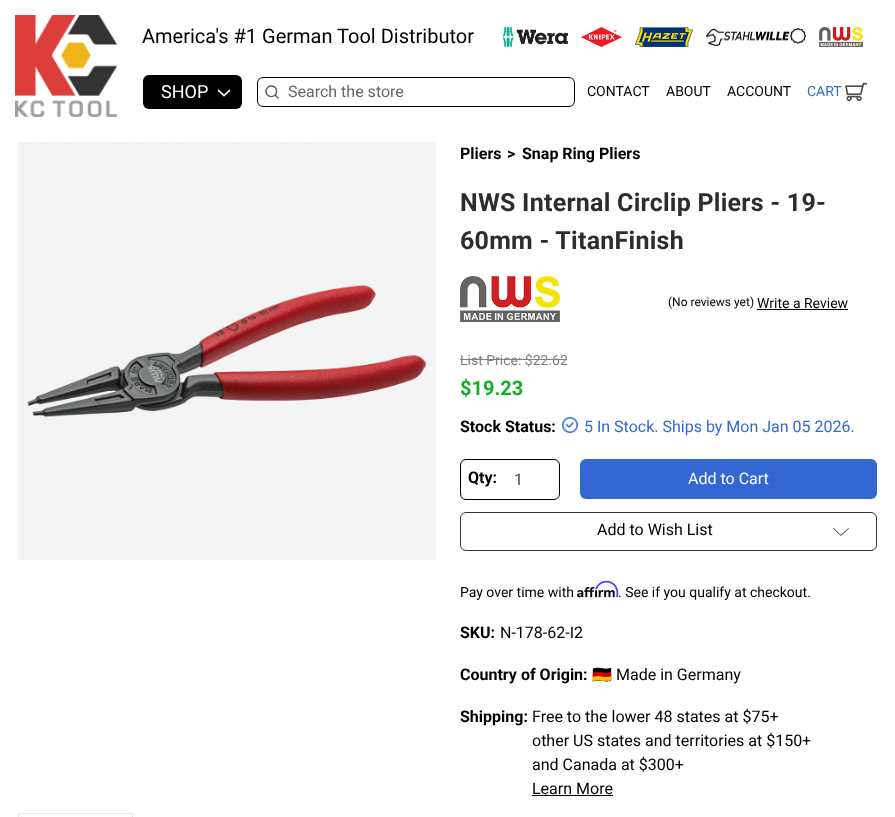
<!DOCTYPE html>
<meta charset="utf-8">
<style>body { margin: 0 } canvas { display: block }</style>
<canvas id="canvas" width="895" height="817"></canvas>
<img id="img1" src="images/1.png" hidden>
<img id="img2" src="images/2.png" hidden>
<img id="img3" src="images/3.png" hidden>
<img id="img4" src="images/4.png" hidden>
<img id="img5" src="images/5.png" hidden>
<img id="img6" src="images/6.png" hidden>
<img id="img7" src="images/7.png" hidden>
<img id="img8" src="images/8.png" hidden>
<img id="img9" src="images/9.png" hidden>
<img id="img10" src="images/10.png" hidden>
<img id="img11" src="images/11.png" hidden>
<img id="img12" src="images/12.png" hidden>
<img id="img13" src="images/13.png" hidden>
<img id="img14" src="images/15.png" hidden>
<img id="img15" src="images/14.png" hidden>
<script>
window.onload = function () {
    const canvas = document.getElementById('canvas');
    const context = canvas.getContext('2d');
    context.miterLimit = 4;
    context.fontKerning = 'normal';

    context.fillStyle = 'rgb(255, 255, 255)';
    context.fillRect(0, 0, 895, 817);
    context.drawImage(document.getElementById('img1'), 15, 15, 102, 102);
    context.drawImage(document.getElementById('img2'), 503, 27, 65, 20);
    context.drawImage(document.getElementById('img3'), 581, 27, 41, 20);
    context.drawImage(document.getElementById('img4'), 635, 27, 58, 20);
    context.drawImage(document.getElementById('img5'), 706, 28, 100, 18);
    context.drawImage(document.getElementById('img6'), 819, 27, 44, 20);
    context.fillStyle = 'rgb(0, 0, 0)';
    context.beginPath();
    context.roundRect(143, 75, 99, 34, 6);
    context.fill();
    context.drawImage(document.getElementById('img7'), 218, 89, 12, 8);
    context.beginPath();
    context.roundRect(257.5, 77.5, 317, 29, 5.5);
    context.strokeStyle = 'rgb(0, 0, 0)';
    context.stroke();
    context.drawImage(document.getElementById('img8'), 265, 85, 14, 14);
    context.drawImage(document.getElementById('img9'), 845, 82, 22, 20);
    context.drawImage(document.getElementById('img10'), 18, 142, 418, 418);
    context.drawImage(document.getElementById('img11'), 460, 276, 100, 46);
    context.fillRect(757, 309, 91, 1);
    context.fillStyle = 'rgb(128, 128, 128)';
    context.fillRect(460, 359, 107, 1);
    context.drawImage(document.getElementById('img12'), 562, 417, 16, 16);
    context.beginPath();
    context.roundRect(460.5, 459.5, 99, 40, 5.5);
    context.stroke();
    context.fillStyle = 'rgb(51, 104, 212)';
    context.beginPath();
    context.roundRect(580, 459, 297, 40, 6);
    context.fill();
    context.beginPath();
    context.roundRect(460.5, 512.5, 416, 38, 5.5);
    context.strokeStyle = 'rgb(51, 51, 51)';
    context.stroke();
    context.drawImage(document.getElementById('img13'), 833, 528, 16, 8);
    context.drawImage(document.getElementById('img14'), 577, 586, 38, 12);
    context.drawImage(document.getElementById('img15'), 595, 580, 24, 18);
    context.fillStyle = 'rgb(0, 0, 0)';
    context.fillRect(532, 795, 81, 1);
    context.fillStyle = 'rgb(232, 232, 232)';
    context.fillRect(18, 813, 115, 1);
    context.fillRect(132, 813, 1, 4);
    context.fillRect(18, 813, 1, 4);
    context.font = '20px Roboto';
    context.fillStyle = 'rgb(0, 0, 0)';
    context.fillText('America\'s #1 German Tool Distributor', 142, 43);
    context.font = '18px Roboto';
    context.fillStyle = 'rgb(255, 255, 255)';
    context.fillText('SHOP', 161, 98);
    context.font = '16px Roboto';
    context.fillStyle = 'rgb(102, 102, 102)';
    context.fillText('Search the store', 288, 97);
    context.font = '14px Roboto';
    context.fillStyle = 'rgb(0, 0, 0)';
    context.fillText('CONTACT', 587, 96);
    context.fillText('ABOUT', 666, 96);
    context.fillText('ACCOUNT', 727, 96);
    context.fillStyle = 'rgb(51, 104, 212)';
    context.fillText('CART', 807, 96);
    context.font = 'bold 16px Roboto';
    context.fillStyle = 'rgb(0, 0, 0)';
    context.fillText('Pliers', 460, 159);
    context.fillText('>', 507, 159);
    context.fillText('Snap Ring Pliers', 522, 159);
    context.letterSpacing = '0.25px';
    context.font = 'bold 25px Roboto';
    context.fillStyle = 'rgb(45, 45, 45)';
    context.fillText('NWS Internal Circlip Pliers - 19-', 460, 211);
    context.fillText('60mm - TitanFinish', 460, 249);
    context.letterSpacing = '0px';
    context.font = '12px Roboto';
    context.fillStyle = 'rgb(0, 0, 0)';
    context.fillText('(No reviews yet)', 668, 306);
    context.font = '14px Roboto';
    context.fillText('Write a Review', 757, 308);
    context.fillStyle = 'rgb(128, 128, 128)';
    context.fillText('List Price: $22.62', 460, 365);
    context.font = 'bold 20px Roboto';
    context.fillStyle = 'rgb(17, 177, 36)';
    context.fillText('$19.23', 460, 395);
    context.font = 'bold 16px Roboto';
    context.fillStyle = 'rgb(0, 0, 0)';
    context.fillText('Stock Status:', 460, 432);
    context.font = '16px Roboto';
    context.fillStyle = 'rgb(51, 104, 212)';
    context.fillText('5 In Stock. Ships by Mon Jan 05 2026.', 584, 432);
    context.font = 'bold 16px Roboto';
    context.fillStyle = 'rgb(0, 0, 0)';
    context.fillText('Qty:', 468, 483);
    context.font = '16px Roboto';
    context.fillStyle = 'rgb(69, 69, 69)';
    context.fillText('1', 514, 485);
    context.fillStyle = 'rgb(255, 255, 255)';
    context.fillText('Add to Cart', 688, 484);
    context.fillStyle = 'rgb(0, 0, 0)';
    context.fillText('Add to Wish List', 597, 535);
    context.font = '14px Roboto';
    context.fillText('Pay over time with', 460, 597);
    context.fillText('. See if you qualify at checkout.', 618, 597);
    context.font = 'bold 16px Roboto';
    context.fillText('SKU:', 460, 638);
    context.font = '16px Roboto';
    context.fillText('N-178-62-I2', 500, 638);
    context.font = 'bold 16px Roboto';
    context.fillText('Country of Origin:', 460, 680);
    context.font = '16px Noto Color Emoji';
    context.fillText('🇩🇪', 592, 680);
    context.font = '16px Roboto';
    context.fillText('Made in Germany', 616, 680);
    context.font = 'bold 16px Roboto';
    context.fillText('Shipping:', 460, 722);
    context.font = '16px Roboto';
    context.fillText('Free to the lower 48 states at $75+', 532, 722);
    context.fillText('other US states and territories at $150+', 532, 746);
    context.fillText('and Canada at $300+', 532, 770);
    context.fillText('Learn More', 532, 794);
};
</script>
